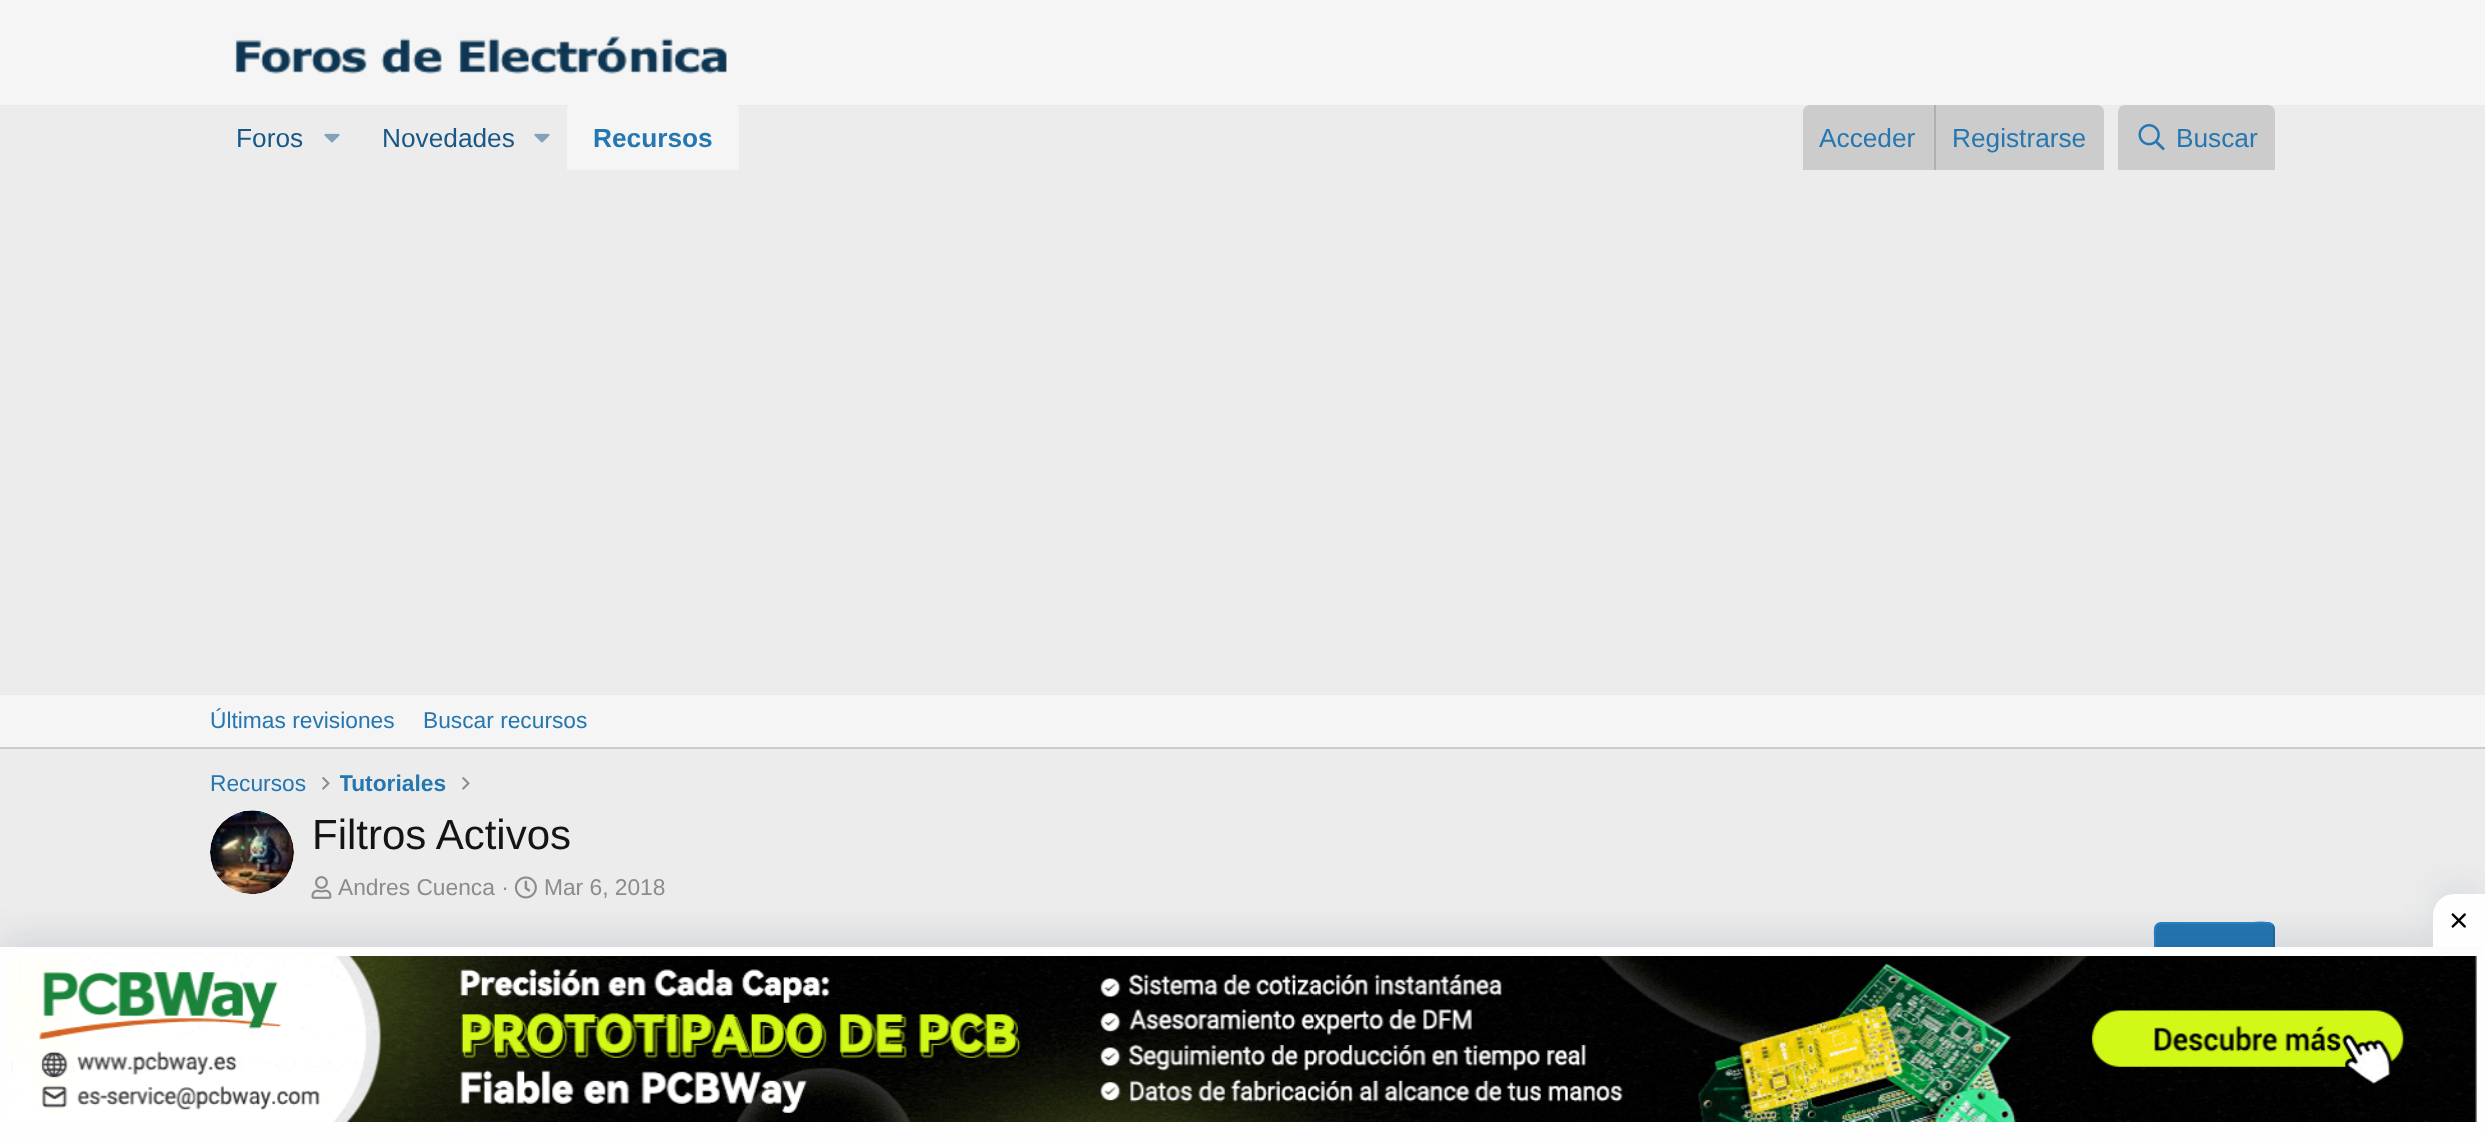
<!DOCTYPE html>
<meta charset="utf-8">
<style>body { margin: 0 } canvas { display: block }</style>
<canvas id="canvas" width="2485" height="1138"></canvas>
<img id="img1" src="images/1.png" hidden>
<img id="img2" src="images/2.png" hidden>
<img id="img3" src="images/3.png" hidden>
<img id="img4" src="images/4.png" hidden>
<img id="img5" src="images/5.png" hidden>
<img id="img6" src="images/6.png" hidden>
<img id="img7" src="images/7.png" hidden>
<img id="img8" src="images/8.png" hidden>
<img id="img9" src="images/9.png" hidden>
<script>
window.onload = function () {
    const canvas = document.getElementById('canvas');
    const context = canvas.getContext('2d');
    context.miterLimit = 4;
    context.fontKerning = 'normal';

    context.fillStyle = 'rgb(236, 236, 236)';
    context.fillRect(0, 0, 2485, 1138);
    context.fillStyle = 'rgb(245, 245, 245)';
    context.fillRect(0, 0, 2485, 105);
    context.drawImage(document.getElementById('img1'), 235, 36, 492, 38);
    context.drawImage(document.getElementById('img2'), 324, 133, 16, 10);
    context.drawImage(document.getElementById('img2'), 534, 133, 16, 10);
    context.beginPath();
    context.roundRect(567, 105, 172, 65, [4, 4, 0, 0]);
    context.fill();
    context.fillStyle = 'rgb(204, 204, 204)';
    context.beginPath();
    context.roundRect(1803, 105, 301, 65, [7, 7, 0, 0]);
    context.fill();
    context.fillStyle = 'rgb(176, 176, 176)';
    context.fillRect(1934, 105, 2, 65);
    context.fillStyle = 'rgb(204, 204, 204)';
    context.beginPath();
    context.roundRect(2118, 105, 157, 65, [7, 7, 0, 0]);
    context.fill();
    context.drawImage(document.getElementById('img3'), 2138, 124, 27, 27);
    context.fillStyle = 'rgb(245, 245, 245)';
    context.fillRect(0, 695, 2485, 52);
    context.fillStyle = 'rgb(203, 203, 203)';
    context.fillRect(0, 747, 2485, 2);
    context.drawImage(document.getElementById('img4'), 322, 777, 8, 13);
    context.drawImage(document.getElementById('img4'), 462, 777, 8, 13);
    context.fillStyle = 'rgb(254, 254, 254)';
    context.beginPath();
    context.arc(252, 852, 42, 0, 2 * Math.PI);
    context.fill();
    context.drawImage(document.getElementById('img5'), 210, 810, 84, 84);
    context.drawImage(document.getElementById('img6'), 311, 876, 21, 23);
    context.drawImage(document.getElementById('img7'), 514, 876, 23, 23);
    context.fillStyle = 'rgb(37, 119, 177)';
    context.beginPath();
    context.roundRect(2154, 922, 121, 53, 7);
    context.fill();
    context.beginPath();
    context.moveTo(2272.5, 925);
    context.bezierCurveTo(2275, 927.5, 2274, 932.5, 2274, 935.5);
    context.lineTo(2274, 948.5);
    context.bezierCurveTo(2274, 976.5, 2278.5, 974, 2250, 974);
    context.lineTo(2179, 974);
    context.bezierCurveTo(2177, 974, 2161.5, 976.5, 2157, 972);
    context.strokeStyle = 'rgb(33, 105, 156)';
    context.lineWidth = 1.8;
    context.stroke();
    context.beginPath();
    context.moveTo(2157, 972);
    context.bezierCurveTo(2154, 969.5, 2155, 964.5, 2155, 961.5);
    context.lineTo(2155, 948.5);
    context.bezierCurveTo(2155, 920.5, 2150.5, 923, 2179, 923);
    context.lineTo(2250, 923);
    context.bezierCurveTo(2252.5, 923, 2268, 920.5, 2272.5, 925);
    context.strokeStyle = 'rgb(41, 133, 198)';
    context.stroke();
    context.fillStyle = 'rgba(9, 32, 76, 0.1)';
    context.filter = 'blur(16px)';
    context.beginPath();
    context.rect(0, 936, 2485, 193);
    context.fill();
    context.filter = 'none';
    context.fillStyle = 'rgb(254, 254, 254)';
    context.fillRect(0, 947, 2485, 191);
    context.fillStyle = 'rgba(9, 32, 76, 0.08)';
    context.filter = 'blur(16px)';
    context.beginPath();
    context.roundRect(2433, 884, 52, 52, 21);
    context.fill();
    context.filter = 'none';
    context.fillStyle = 'rgb(254, 254, 254)';
    context.beginPath();
    context.roundRect(2433, 894, 52, 53, [21, 0, 0, 0]);
    context.fill();
    context.drawImage(document.getElementById('img8'), 2451, 913, 15, 15);
    context.drawImage(document.getElementById('img9'), 9, 956, 2468, 166);
    context.font = '26.25px Liberation Sans';
    context.fillStyle = 'rgb(24, 88, 134)';
    context.fillText('Foros', 236, 147);
    context.fillText('Novedades', 382, 147);
    context.font = 'bold 26.25px Liberation Sans';
    context.fillStyle = 'rgb(37, 119, 177)';
    context.fillText('Recursos', 593, 147);
    context.font = '26.25px Liberation Sans';
    context.fillText('Acceder', 1819, 147);
    context.fillText('Registrarse', 1952, 147);
    context.fillText('Buscar', 2176, 147);
    context.font = '22.75px Liberation Sans';
    context.fillText('Últimas revisiones', 210, 728);
    context.fillText('Buscar recursos', 423, 728);
    context.fillText('Recursos', 210, 791);
    context.save();
    context.beginPath();
    context.rect(340, 767, 106, 35);
    context.clip();
    context.font = 'bold 22.75px Liberation Sans';
    context.fillText('Tutoriales', 339, 791);
    context.restore();
    context.font = '42px Liberation Sans';
    context.fillStyle = 'rgb(20, 20, 20)';
    context.fillText('Filtros Activos', 312, 849);
    context.font = '22.75px Liberation Sans';
    context.fillStyle = 'rgb(140, 140, 140)';
    context.fillText('Andres Cuenca ·', 338, 895);
    context.fillText('Mar 6, 2018', 544, 895);
};
</script>
